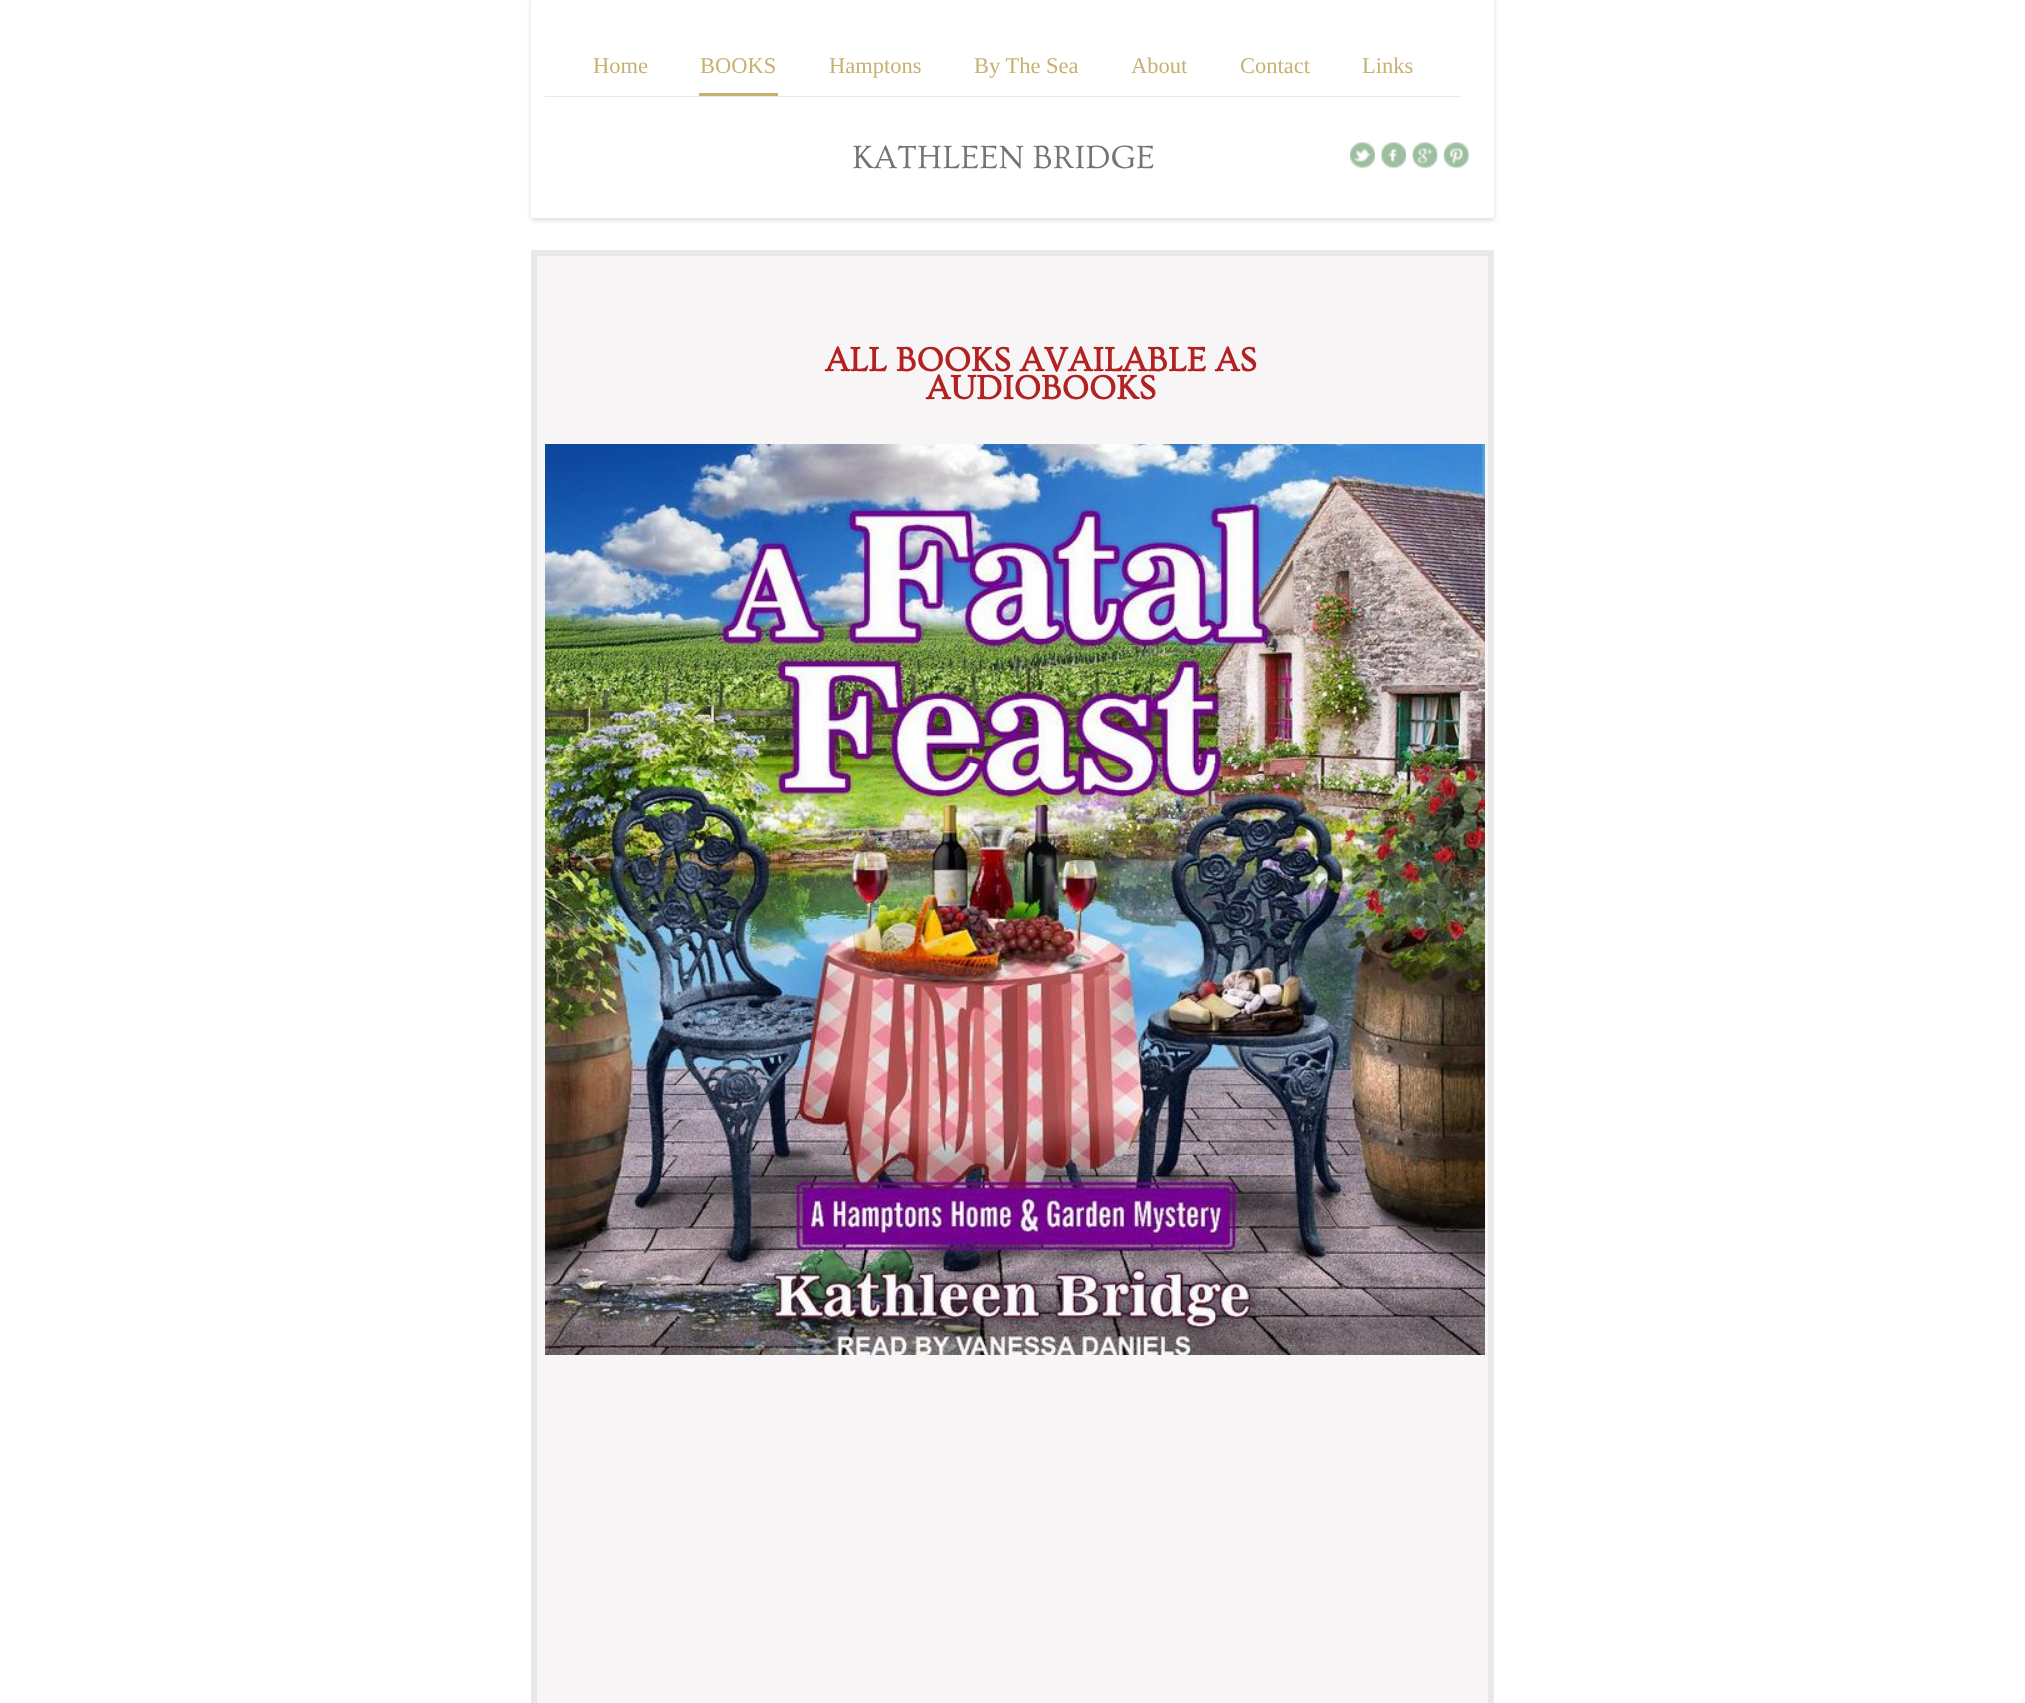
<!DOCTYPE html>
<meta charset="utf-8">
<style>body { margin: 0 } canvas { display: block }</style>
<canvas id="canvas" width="2025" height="1703"></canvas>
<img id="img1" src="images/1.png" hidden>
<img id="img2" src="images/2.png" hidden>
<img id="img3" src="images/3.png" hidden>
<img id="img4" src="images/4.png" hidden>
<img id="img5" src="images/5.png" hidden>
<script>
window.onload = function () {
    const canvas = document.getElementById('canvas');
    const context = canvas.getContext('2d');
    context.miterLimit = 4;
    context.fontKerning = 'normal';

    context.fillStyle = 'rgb(255, 255, 255)';
    context.fillRect(0, 0, 2025, 1703);
    context.fillStyle = 'rgb(247, 245, 246)';
    context.beginPath();
    context.rect(534, 253, 957, 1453);
    context.fill();
    context.strokeStyle = 'rgb(232, 232, 234)';
    context.lineWidth = 6;
    context.stroke();
    context.fillStyle = 'rgba(0, 0, 0, 0.15)';
    context.filter = 'blur(2.5px)';
    context.beginPath();
    context.rect(531, -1, 963, 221);
    context.fill();
    context.filter = 'none';
    context.fillStyle = 'rgb(255, 255, 255)';
    context.fillRect(531, 0, 963, 218);
    context.fillStyle = 'rgb(232, 232, 234)';
    context.fillRect(545, 96, 916, 1);
    context.fillStyle = 'rgb(197, 177, 110)';
    context.fillRect(699, 93, 79, 3);
    context.drawImage(document.getElementById('img1'), 1350, 142, 25, 26);
    context.drawImage(document.getElementById('img2'), 1381, 142, 26, 26);
    context.drawImage(document.getElementById('img3'), 1412, 142, 26, 26);
    context.drawImage(document.getElementById('img4'), 1443, 142, 26, 26);
    context.drawImage(document.getElementById('img5'), 545, 444, 940, 911);
    context.font = '22.5px Liberation Serif';
    context.fillStyle = 'rgb(198, 177, 112)';
    context.fillText('Home', 593, 73);
    context.fillText('BOOKS', 700, 73);
    context.fillText('Hamptons', 829, 73);
    context.fillText('By The Sea', 974, 73);
    context.fillText('About', 1131, 73);
    context.fillText('Contact', 1240, 73);
    context.fillText('Links', 1362, 73);
    context.font = '33.75px Ovo';
    context.fillStyle = 'rgb(116, 116, 116)';
    context.fillText('KATHLEEN BRIDGE', 852, 168);
    context.font = 'bold 35px Ovo';
    context.fillStyle = 'rgb(178, 34, 34)';
    context.fillText('ALL BOOKS AVAILABLE AS', 825, 371);
    context.fillText('AUDIOBOOKS', 926, 399);
};
</script>
